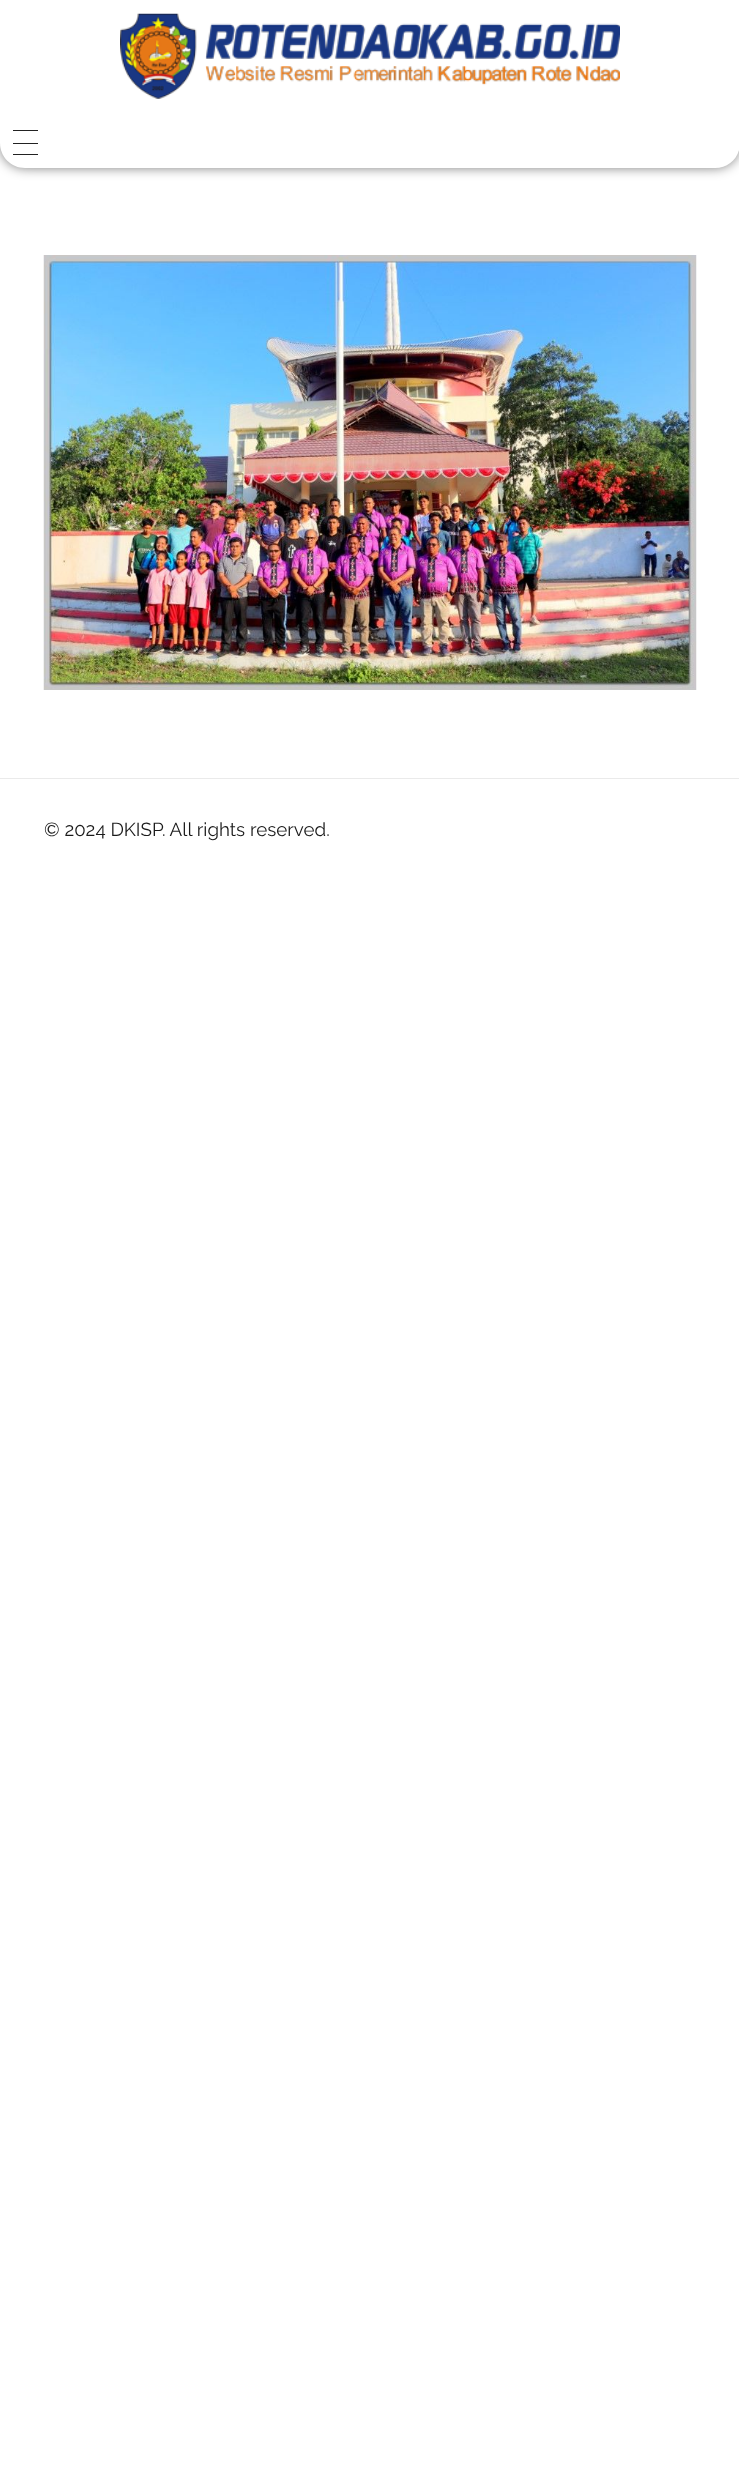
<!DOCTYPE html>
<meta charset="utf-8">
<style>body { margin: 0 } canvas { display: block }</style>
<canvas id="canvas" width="739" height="2472"></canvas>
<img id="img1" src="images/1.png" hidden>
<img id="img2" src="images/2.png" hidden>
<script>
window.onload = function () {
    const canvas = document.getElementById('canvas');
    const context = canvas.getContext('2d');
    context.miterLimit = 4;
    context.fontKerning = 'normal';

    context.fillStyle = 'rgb(255, 255, 255)';
    context.fillRect(0, 0, 739, 2472);
    context.fillStyle = 'rgba(0, 0, 0, 0.5)';
    context.filter = 'blur(6px)';
    context.beginPath();
    context.roundRect(0, 0, 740, 168, 25);
    context.fill();
    context.filter = 'none';
    context.fillStyle = 'rgb(255, 255, 255)';
    context.beginPath();
    context.moveTo(0, 0);
    context.lineTo(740, 0);
    context.lineTo(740, 143);
    context.bezierCurveTo(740, 157, 729, 168, 715, 168);
    context.lineTo(25, 168);
    context.bezierCurveTo(11, 168, 0, 157, 0, 143);
    context.closePath();
    context.fill();
    context.drawImage(document.getElementById('img1'), 120, 13, 500, 86);
    context.fillStyle = 'rgb(34, 34, 34)';
    context.fillRect(13, 130, 25, 1);
    context.fillRect(13, 143, 25, 1);
    context.fillRect(13, 154, 25, 1);
    context.drawImage(document.getElementById('img2'), 43, 255, 654, 435);
    context.fillStyle = 'rgb(234, 234, 234)';
    context.fillRect(0, 778, 739, 1);
    context.font = '18.75px Raleway';
    context.fillStyle = 'rgb(26, 26, 26)';
    context.fillText('© 2024 DKISP. All rights reserved.', 44, 836);
};
</script>
